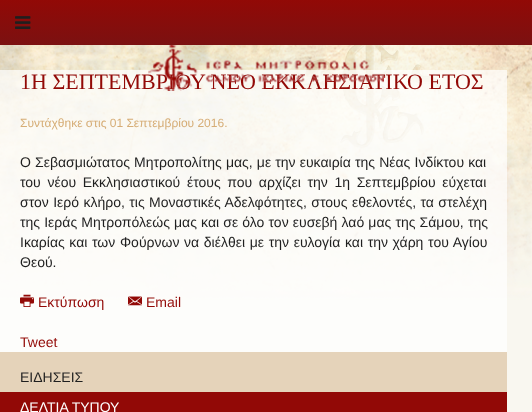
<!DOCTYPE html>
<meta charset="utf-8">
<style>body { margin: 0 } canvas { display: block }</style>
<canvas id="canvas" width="532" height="412"></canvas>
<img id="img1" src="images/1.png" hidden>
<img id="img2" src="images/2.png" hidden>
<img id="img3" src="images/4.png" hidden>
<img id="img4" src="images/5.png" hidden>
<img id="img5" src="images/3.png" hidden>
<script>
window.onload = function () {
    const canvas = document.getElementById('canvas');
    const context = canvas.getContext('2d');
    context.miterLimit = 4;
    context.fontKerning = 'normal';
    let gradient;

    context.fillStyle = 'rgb(249, 247, 240)';
    context.fillRect(0, 0, 532, 412);
    context.drawImage(document.getElementById('img1'), 0, 45, 532, 255);
    gradient = context.createLinearGradient(266, 0, 266, 45);
    gradient.addColorStop(0, 'rgb(146, 9, 6)');
    gradient.addColorStop(1, 'rgb(123, 17, 17)');
    context.fillStyle = gradient;
    context.fillRect(0, 0, 532, 45);
    context.drawImage(document.getElementById('img2'), 15, 16, 16, 13);
    context.fillStyle = 'rgba(255, 255, 255, 0.7)';
    context.fillRect(0, 70, 507, 282);
    context.drawImage(document.getElementById('img3'), 20, 294, 14, 13);
    context.drawImage(document.getElementById('img4'), 128, 296, 14, 10);
    context.fillStyle = 'rgb(229, 211, 186)';
    context.fillRect(0, 352, 507, 40);
    context.fillStyle = 'rgb(146, 9, 6)';
    context.fillRect(0, 392, 507, 20);
    context.font = '22px Liberation Serif';
    context.fillText('1Η ΣΕΠΤΕΜΒΡΙΟΥ ΝΕΟ ΕΚΚΛΗΣΙΑΤΙΚΟ ΕΤΟΣ', 20, 89);
    context.drawImage(document.getElementById('img5'), 148, 45, 236, 46);
    context.font = '12px Liberation Sans';
    context.fillStyle = 'rgb(214, 173, 118)';
    context.fillText('Συντάχθηκε στις 01 Σεπτεμβρίου 2016.', 20, 127);
    context.wordSpacing = '0.25px';
    context.font = '14px Liberation Sans';
    context.fillStyle = 'rgb(31, 31, 31)';
    context.fillText('Ο Σεβασμιώτατος Μητροπολίτης μας, με την ευκαιρία της Νέας Ινδίκτου και', 20, 167);
    context.wordSpacing = '2.75px';
    context.fillText('του νέου Εκκλησιαστικού έτους που αρχίζει την 1η Σεπτεμβρίου εύχεται', 20, 187);
    context.wordSpacing = '0.5px';
    context.fillText('στον Ιερό κλήρο, τις Μοναστικές Αδελφότητες, στους εθελοντές, τα στελέχη', 20, 207);
    context.wordSpacing = '0.25px';
    context.fillText('της Ιεράς Μητροπόλεώς μας και σε όλο τον ευσεβή λαό μας της Σάμου, της', 20, 227);
    context.wordSpacing = '0.75px';
    context.fillText('Ικαρίας και των Φούρνων να διέλθει με την ευλογία και την χάρη του Αγίου', 20, 247);
    context.wordSpacing = '0px';
    context.fillText('Θεού.', 20, 267);
    context.fillStyle = 'rgb(146, 9, 6)';
    context.fillText('Εκτύπωση', 38, 307);
    context.fillText('Email', 146, 307);
    context.fillText('Tweet', 20, 347);
    context.fillStyle = 'rgb(31, 31, 31)';
    context.fillText('ΕΙΔΗΣΕΙΣ', 20, 382);
    context.fillStyle = 'rgb(255, 255, 255)';
    context.fillText('ΔΕΛΤΙΑ ΤΥΠΟΥ', 20, 412);
};
</script>
